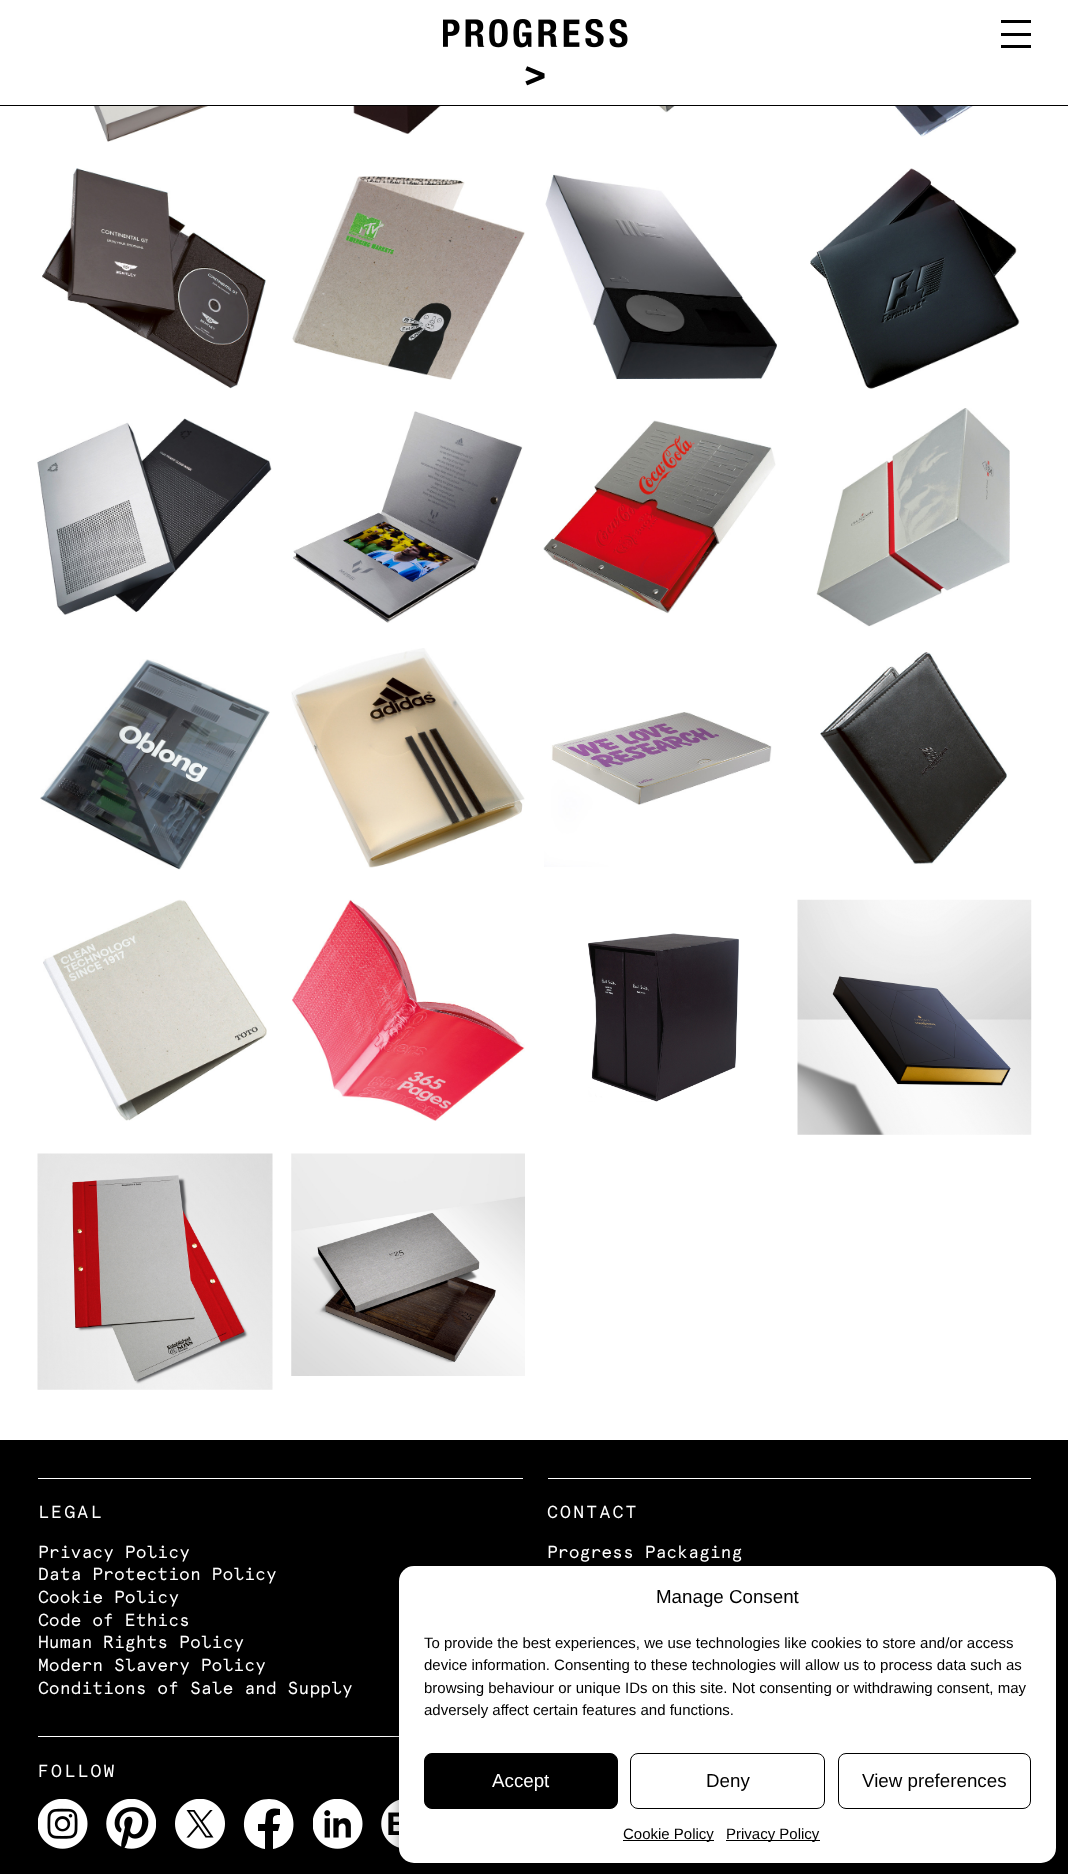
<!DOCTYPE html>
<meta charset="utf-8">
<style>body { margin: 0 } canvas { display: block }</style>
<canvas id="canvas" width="1068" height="1874"></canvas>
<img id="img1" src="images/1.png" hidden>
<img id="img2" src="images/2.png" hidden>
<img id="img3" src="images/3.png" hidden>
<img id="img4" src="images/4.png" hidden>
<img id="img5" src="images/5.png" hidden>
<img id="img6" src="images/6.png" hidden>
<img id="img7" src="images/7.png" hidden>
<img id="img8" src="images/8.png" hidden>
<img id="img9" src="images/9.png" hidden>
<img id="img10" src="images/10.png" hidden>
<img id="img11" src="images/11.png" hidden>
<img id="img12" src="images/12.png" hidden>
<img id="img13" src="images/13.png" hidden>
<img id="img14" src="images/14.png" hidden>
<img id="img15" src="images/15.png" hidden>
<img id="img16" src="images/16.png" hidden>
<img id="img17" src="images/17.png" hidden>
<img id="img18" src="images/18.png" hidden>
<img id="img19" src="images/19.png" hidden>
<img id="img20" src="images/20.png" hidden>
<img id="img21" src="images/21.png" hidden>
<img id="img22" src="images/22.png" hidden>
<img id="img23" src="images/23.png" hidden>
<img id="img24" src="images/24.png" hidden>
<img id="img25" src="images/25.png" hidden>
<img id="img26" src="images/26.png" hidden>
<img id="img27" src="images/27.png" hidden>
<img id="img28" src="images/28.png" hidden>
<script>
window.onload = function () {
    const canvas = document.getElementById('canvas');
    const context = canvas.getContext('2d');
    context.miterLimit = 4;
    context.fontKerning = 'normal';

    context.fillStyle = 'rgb(255, 255, 255)';
    context.fillRect(0, 0, 1068, 1874);
    context.fillStyle = 'rgb(0, 0, 0)';
    context.fillRect(0, 105, 1068, 1);
    context.drawImage(document.getElementById('img1'), 443, 19, 185, 67);
    context.fillRect(1001, 20, 30, 3);
    context.fillRect(1001, 33, 30, 3);
    context.fillRect(1001, 45, 30, 3);
    context.drawImage(document.getElementById('img2'), 53, 106, 212, 36);
    context.drawImage(document.getElementById('img3'), 348, 106, 124, 28);
    context.drawImage(document.getElementById('img4'), 548, 106, 224, 7);
    context.drawImage(document.getElementById('img5'), 809, 106, 210, 31);
    context.drawImage(document.getElementById('img6'), 42, 168, 224, 221);
    context.drawImage(document.getElementById('img7'), 292, 176, 233, 204);
    context.drawImage(document.getElementById('img8'), 545, 174, 232, 206);
    context.drawImage(document.getElementById('img9'), 810, 168, 210, 221);
    context.drawImage(document.getElementById('img10'), 37, 418, 235, 197);
    context.drawImage(document.getElementById('img11'), 293, 411, 230, 212);
    context.drawImage(document.getElementById('img12'), 543, 420, 233, 194);
    context.drawImage(document.getElementById('img13'), 816, 408, 194, 219);
    context.drawImage(document.getElementById('img14'), 40, 659, 230, 211);
    context.drawImage(document.getElementById('img15'), 291, 648, 234, 220);
    context.drawImage(document.getElementById('img16'), 544, 712, 228, 155);
    context.drawImage(document.getElementById('img17'), 820, 652, 187, 213);
    context.drawImage(document.getElementById('img18'), 43, 899, 224, 222);
    context.drawImage(document.getElementById('img19'), 292, 899, 233, 222);
    context.drawImage(document.getElementById('img20'), 588, 933, 151, 169);
    context.drawImage(document.getElementById('img21'), 797, 899, 235, 236);
    context.drawImage(document.getElementById('img22'), 37, 1153, 236, 237);
    context.drawImage(document.getElementById('img23'), 291, 1153, 234, 223);
    context.fillRect(0, 1440, 1068, 434);
    context.fillStyle = 'rgb(255, 255, 255)';
    context.fillRect(38, 1478, 485, 1);
    context.fillRect(548, 1478, 483, 1);
    context.fillRect(38, 1736, 361, 1);
    context.drawImage(document.getElementById('img24'), 38, 1799, 50, 50);
    context.drawImage(document.getElementById('img25'), 106, 1799, 50, 50);
    context.drawImage(document.getElementById('img26'), 175, 1799, 50, 50);
    context.beginPath();
    context.moveTo(269, 1799);
    context.bezierCurveTo(238, 1799, 235, 1844, 265, 1849);
    context.lineTo(265, 1831);
    context.lineTo(258, 1831);
    context.lineTo(258, 1824);
    context.lineTo(265, 1824);
    context.lineTo(266, 1814);
    context.bezierCurveTo(268, 1808, 275, 1808, 280, 1809);
    context.lineTo(280, 1815);
    context.bezierCurveTo(272, 1815, 273, 1817, 273, 1824);
    context.lineTo(280, 1824);
    context.lineTo(278, 1831);
    context.lineTo(273, 1831);
    context.lineTo(273, 1849);
    context.bezierCurveTo(303, 1844, 299, 1799, 269, 1799);
    context.closePath();
    context.fill();
    context.drawImage(document.getElementById('img27'), 313, 1799, 50, 50);
    context.drawImage(document.getElementById('img28'), 381, 1799, 18, 49);
    context.fillStyle = 'rgba(0, 0, 0, 0.23)';
    context.filter = 'blur(4px)';
    context.beginPath();
    context.roundRect(399, 1574, 657, 296, 15);
    context.fill();
    context.filter = 'none';
    context.fillStyle = 'rgba(0, 0, 0, 0.19)';
    context.filter = 'blur(12.5px)';
    context.beginPath();
    context.roundRect(399, 1579, 657, 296, 15);
    context.fill();
    context.filter = 'none';
    context.fillStyle = 'rgb(255, 255, 255)';
    context.beginPath();
    context.roundRect(399, 1566, 657, 297, 15);
    context.fill();
    context.fillStyle = 'rgb(0, 0, 0)';
    context.beginPath();
    context.roundRect(424.5, 1753.5, 193, 55, 7.5);
    context.fill();
    context.strokeStyle = 'rgb(0, 0, 0)';
    context.stroke();
    context.beginPath();
    context.roundRect(630.5, 1753.5, 194, 55, 7.5);
    context.stroke();
    context.beginPath();
    context.roundRect(838.5, 1753.5, 192, 55, 7.5);
    context.stroke();
    context.fillRect(623, 1840, 91, 1);
    context.fillRect(726, 1840, 94, 1);
    context.letterSpacing = '2.25px';
    context.font = '200 17.5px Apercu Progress';
    context.fillStyle = 'rgb(255, 255, 255)';
    context.fillText('LEGAL', 38, 1518);
    context.letterSpacing = '0px';
    context.fillText('Privacy Policy', 38, 1558);
    context.fillText('Data Protection Policy', 38, 1580);
    context.fillText('Cookie Policy', 38, 1603);
    context.fillText('Code of Ethics', 38, 1626);
    context.fillText('Human Rights Policy', 38, 1648);
    context.fillText('Modern Slavery Policy', 38, 1671);
    context.fillText('Conditions of Sale and Supply', 38, 1694);
    context.letterSpacing = '2.25px';
    context.fillText('CONTACT', 547, 1518);
    context.letterSpacing = '0px';
    context.fillText('Progress Packaging', 547, 1558);
    context.letterSpacing = '2.25px';
    context.fillText('FOLLOW', 38, 1777);
    context.letterSpacing = '0px';
    context.font = '18.75px Liberation Sans';
    context.fillStyle = 'rgb(0, 0, 0)';
    context.fillText('Manage Consent', 656, 1603);
    context.font = '15px Liberation Sans';
    context.fillText('To provide the best experiences, we use technologies like cookies to store and/or access', 424, 1648);
    context.fillText('device information. Consenting to these technologies will allow us to process data such as', 424, 1670);
    context.fillText('browsing behaviour or unique IDs on this site. Not consenting or withdrawing consent, may', 424, 1693);
    context.fillText('adversely affect certain features and functions.', 424, 1715);
    context.font = '18.75px Liberation Sans';
    context.fillStyle = 'rgb(255, 255, 255)';
    context.fillText('Accept', 492, 1787);
    context.fillStyle = 'rgb(0, 0, 0)';
    context.fillText('Deny', 706, 1787);
    context.fillText('View preferences', 862, 1787);
    context.font = '15px Liberation Sans';
    context.fillText('Cookie Policy', 623, 1839);
    context.fillText('Privacy Policy', 726, 1839);
};
</script>
